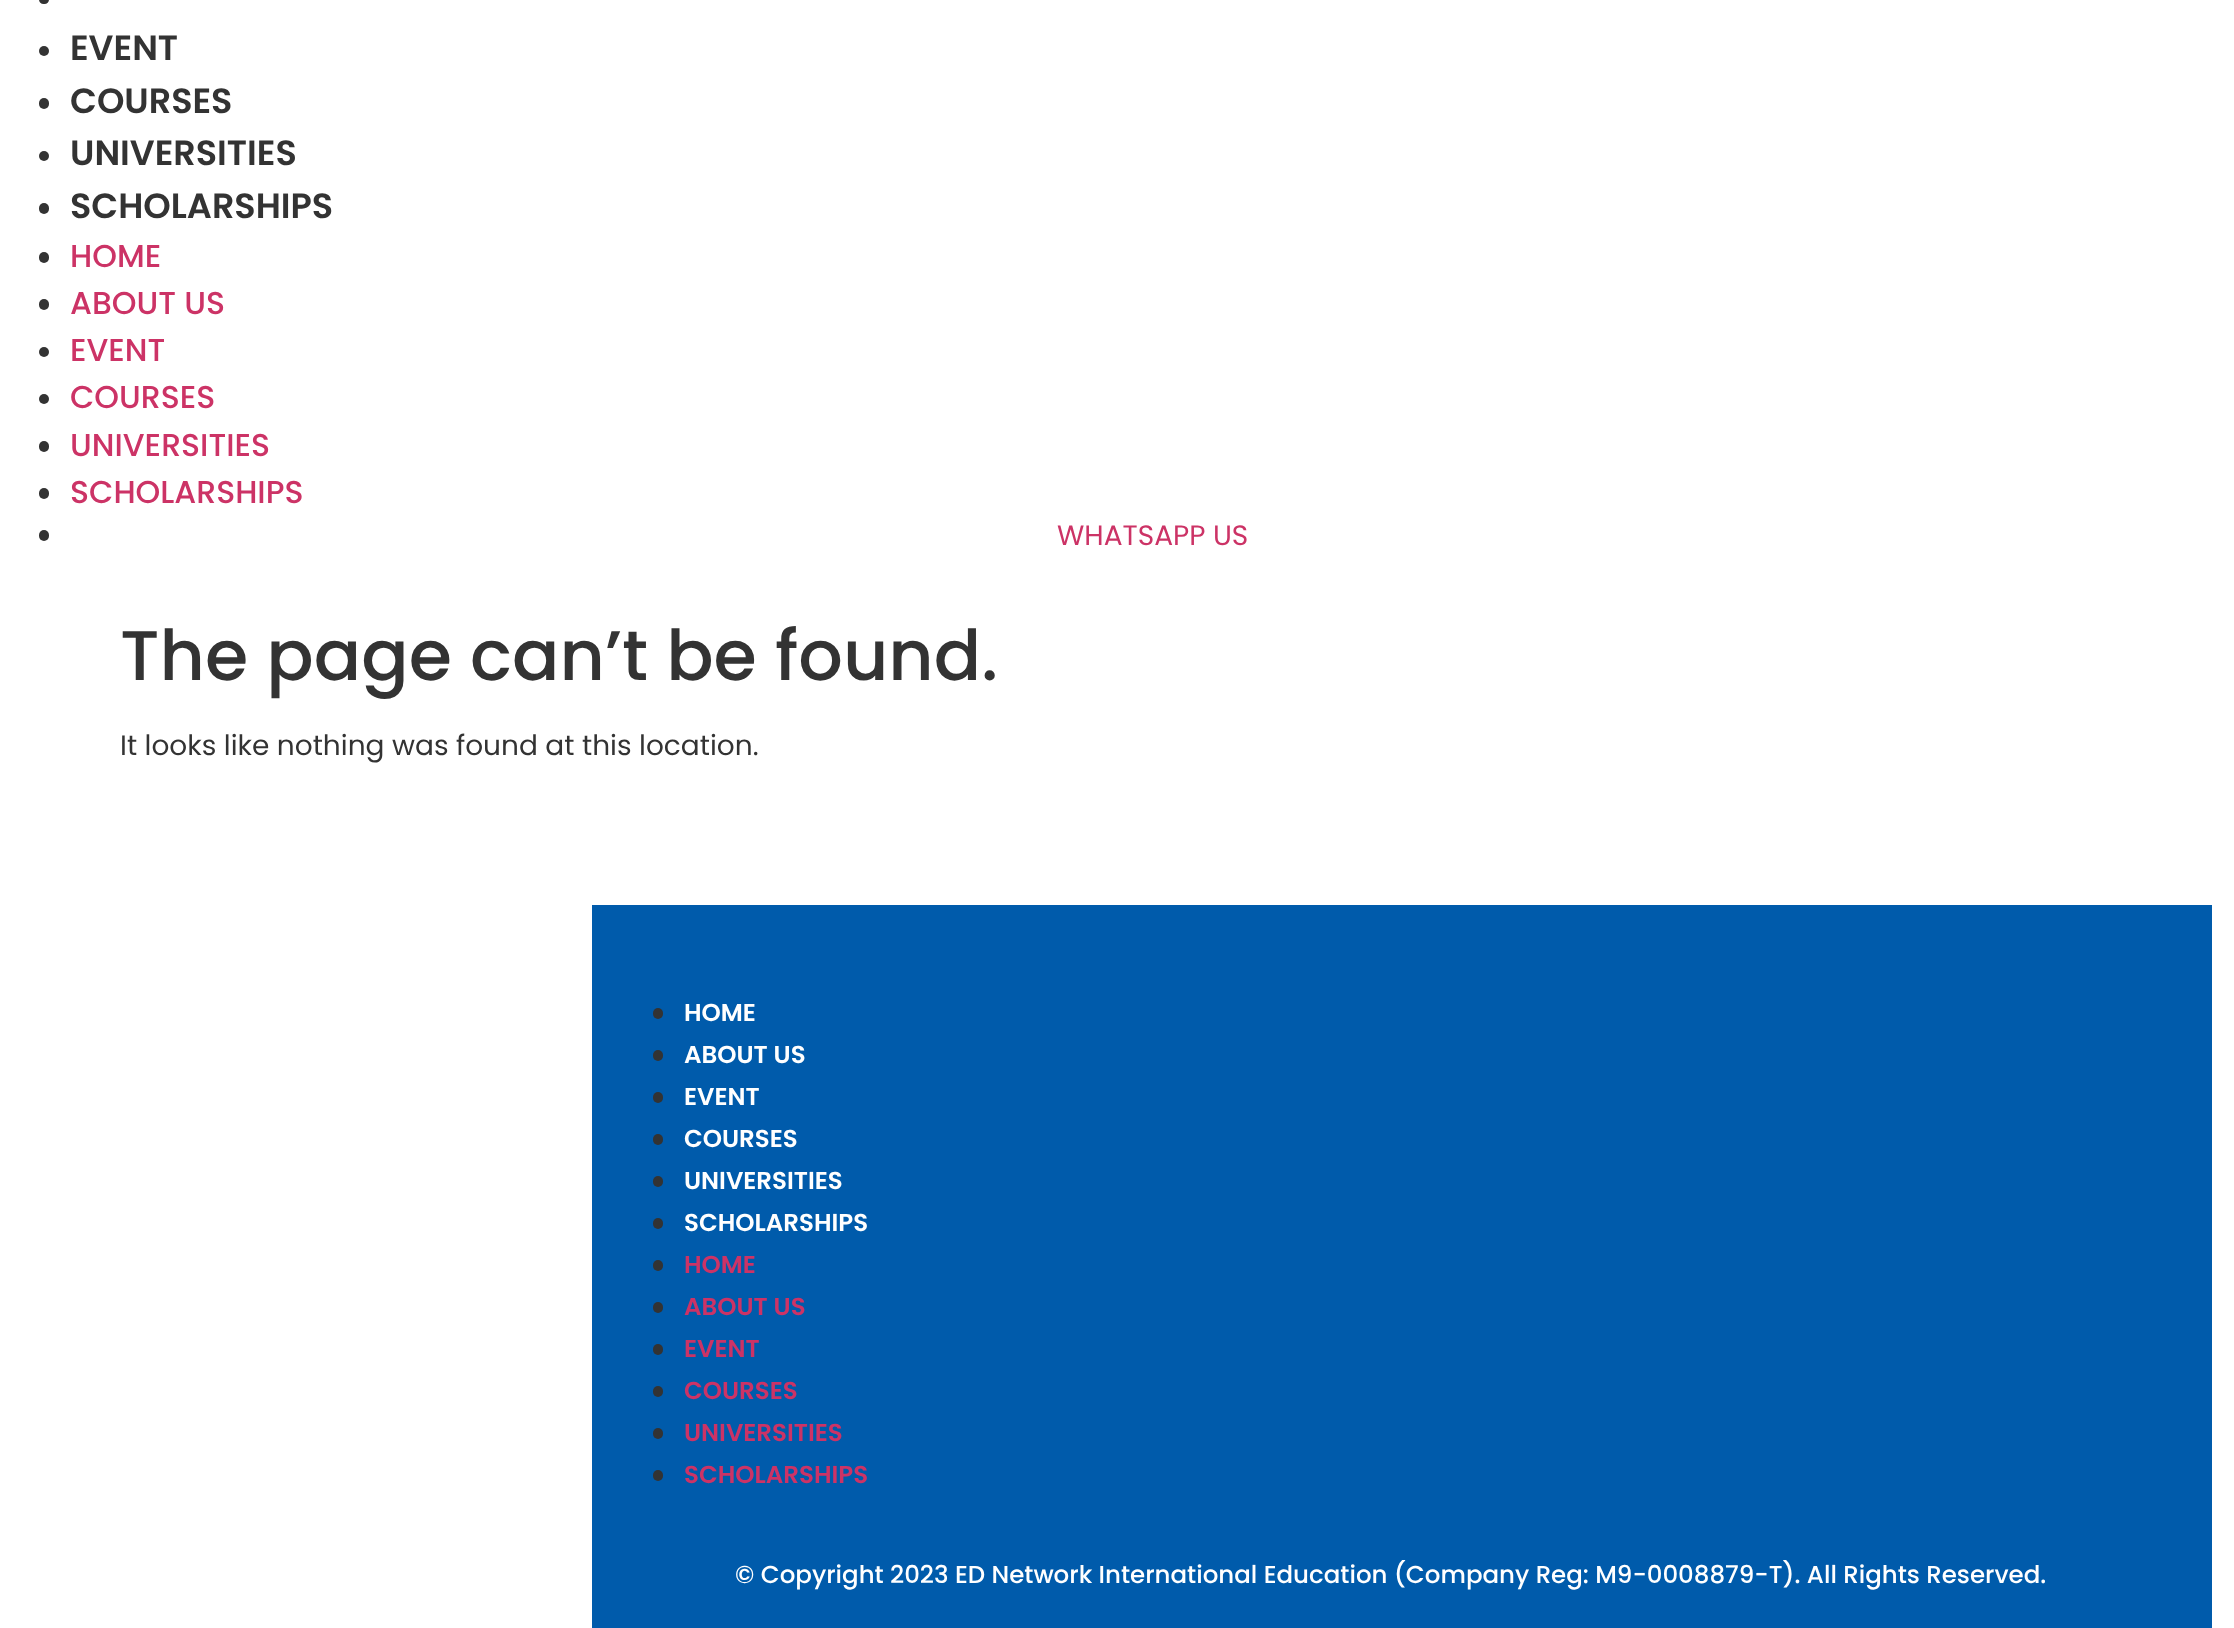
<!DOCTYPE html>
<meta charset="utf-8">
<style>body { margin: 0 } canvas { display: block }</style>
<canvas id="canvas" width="2234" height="1628"></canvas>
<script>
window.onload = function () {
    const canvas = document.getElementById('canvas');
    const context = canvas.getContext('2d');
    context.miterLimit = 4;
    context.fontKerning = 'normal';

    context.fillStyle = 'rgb(255, 255, 255)';
    context.fillRect(0, 0, 2234, 1628);
    context.fillStyle = 'rgb(51, 51, 51)';
    context.beginPath();
    context.roundRect(39, -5, 10, 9, 5);
    context.fill();
    context.beginPath();
    context.arc(44, 51, 5, 0, 2 * Math.PI);
    context.fill();
    context.beginPath();
    context.roundRect(39, 98, 10, 11, 5);
    context.fill();
    context.beginPath();
    context.arc(44, 156, 5, 0, 2 * Math.PI);
    context.fill();
    context.beginPath();
    context.roundRect(39, 203, 10, 11, 5);
    context.fill();
    context.beginPath();
    context.roundRect(39, 252, 10, 11, 5);
    context.fill();
    context.beginPath();
    context.roundRect(39, 299, 10, 11, 5);
    context.fill();
    context.beginPath();
    context.arc(44, 352, 5, 0, 2 * Math.PI);
    context.fill();
    context.beginPath();
    context.arc(44, 399, 5, 0, 2 * Math.PI);
    context.fill();
    context.beginPath();
    context.roundRect(39, 441, 10, 11, 5);
    context.fill();
    context.beginPath();
    context.roundRect(39, 488, 10, 11, 5);
    context.fill();
    context.beginPath();
    context.roundRect(39, 530, 10, 11, 5);
    context.fill();
    context.fillStyle = 'rgb(0, 91, 171)';
    context.fillRect(592, 905, 1620, 723);
    context.fillStyle = 'rgb(51, 51, 51)';
    context.beginPath();
    context.roundRect(653, 1008, 10, 11, 5);
    context.fill();
    context.beginPath();
    context.roundRect(653, 1050, 10, 11, 5);
    context.fill();
    context.beginPath();
    context.roundRect(653, 1092, 10, 11, 5);
    context.fill();
    context.beginPath();
    context.roundRect(653, 1134, 10, 11, 5);
    context.fill();
    context.beginPath();
    context.roundRect(653, 1176, 10, 11, 5);
    context.fill();
    context.beginPath();
    context.roundRect(653, 1218, 10, 11, 5);
    context.fill();
    context.beginPath();
    context.roundRect(653, 1260, 10, 11, 5);
    context.fill();
    context.beginPath();
    context.roundRect(653, 1302, 10, 11, 5);
    context.fill();
    context.beginPath();
    context.roundRect(653, 1344, 10, 11, 5);
    context.fill();
    context.beginPath();
    context.roundRect(653, 1386, 10, 11, 5);
    context.fill();
    context.beginPath();
    context.roundRect(653, 1428, 10, 11, 5);
    context.fill();
    context.beginPath();
    context.roundRect(653, 1470, 10, 11, 5);
    context.fill();
    context.font = '600 35px Poppins';
    context.fillText('EVENT', 70, 60);
    context.fillText('COURSES', 70, 113);
    context.fillText('UNIVERSITIES', 70, 165);
    context.fillText('SCHOLARSHIPS', 70, 218);
    context.font = '500 31.5px Poppins';
    context.fillStyle = 'rgb(204, 51, 102)';
    context.fillText('HOME', 70, 267);
    context.fillText('ABOUT US', 70, 314);
    context.fillText('EVENT', 70, 361);
    context.fillText('COURSES', 70, 408);
    context.fillText('UNIVERSITIES', 70, 456);
    context.fillText('SCHOLARSHIPS', 70, 503);
    context.font = '28px Poppins';
    context.fillText('WHATSAPP US', 1057, 545);
    context.font = '500 70px Poppins';
    context.fillStyle = 'rgb(51, 51, 51)';
    context.fillText('The page can’t be found.', 120, 680);
    context.font = '28px Poppins';
    context.fillText('It looks like nothing was found at this location.', 120, 755);
    context.font = '600 24.5px Poppins';
    context.fillStyle = 'rgb(255, 255, 255)';
    context.fillText('HOME', 684, 1021);
    context.fillText('ABOUT US', 684, 1063);
    context.fillText('EVENT', 684, 1105);
    context.fillText('COURSES', 684, 1147);
    context.fillText('UNIVERSITIES', 684, 1189);
    context.fillText('SCHOLARSHIPS', 684, 1231);
    context.fillStyle = 'rgb(204, 51, 102)';
    context.fillText('HOME', 684, 1273);
    context.fillText('ABOUT US', 684, 1315);
    context.fillText('EVENT', 684, 1357);
    context.fillText('COURSES', 684, 1399);
    context.fillText('UNIVERSITIES', 684, 1441);
    context.fillText('SCHOLARSHIPS', 684, 1483);
    context.font = '500 24.5px Poppins';
    context.fillStyle = 'rgb(255, 255, 255)';
    context.fillText('© Copyright 2023 ED Network International Education (Company Reg: M9-0008879-T). All Rights Reserved.', 735, 1583);
};
</script>
